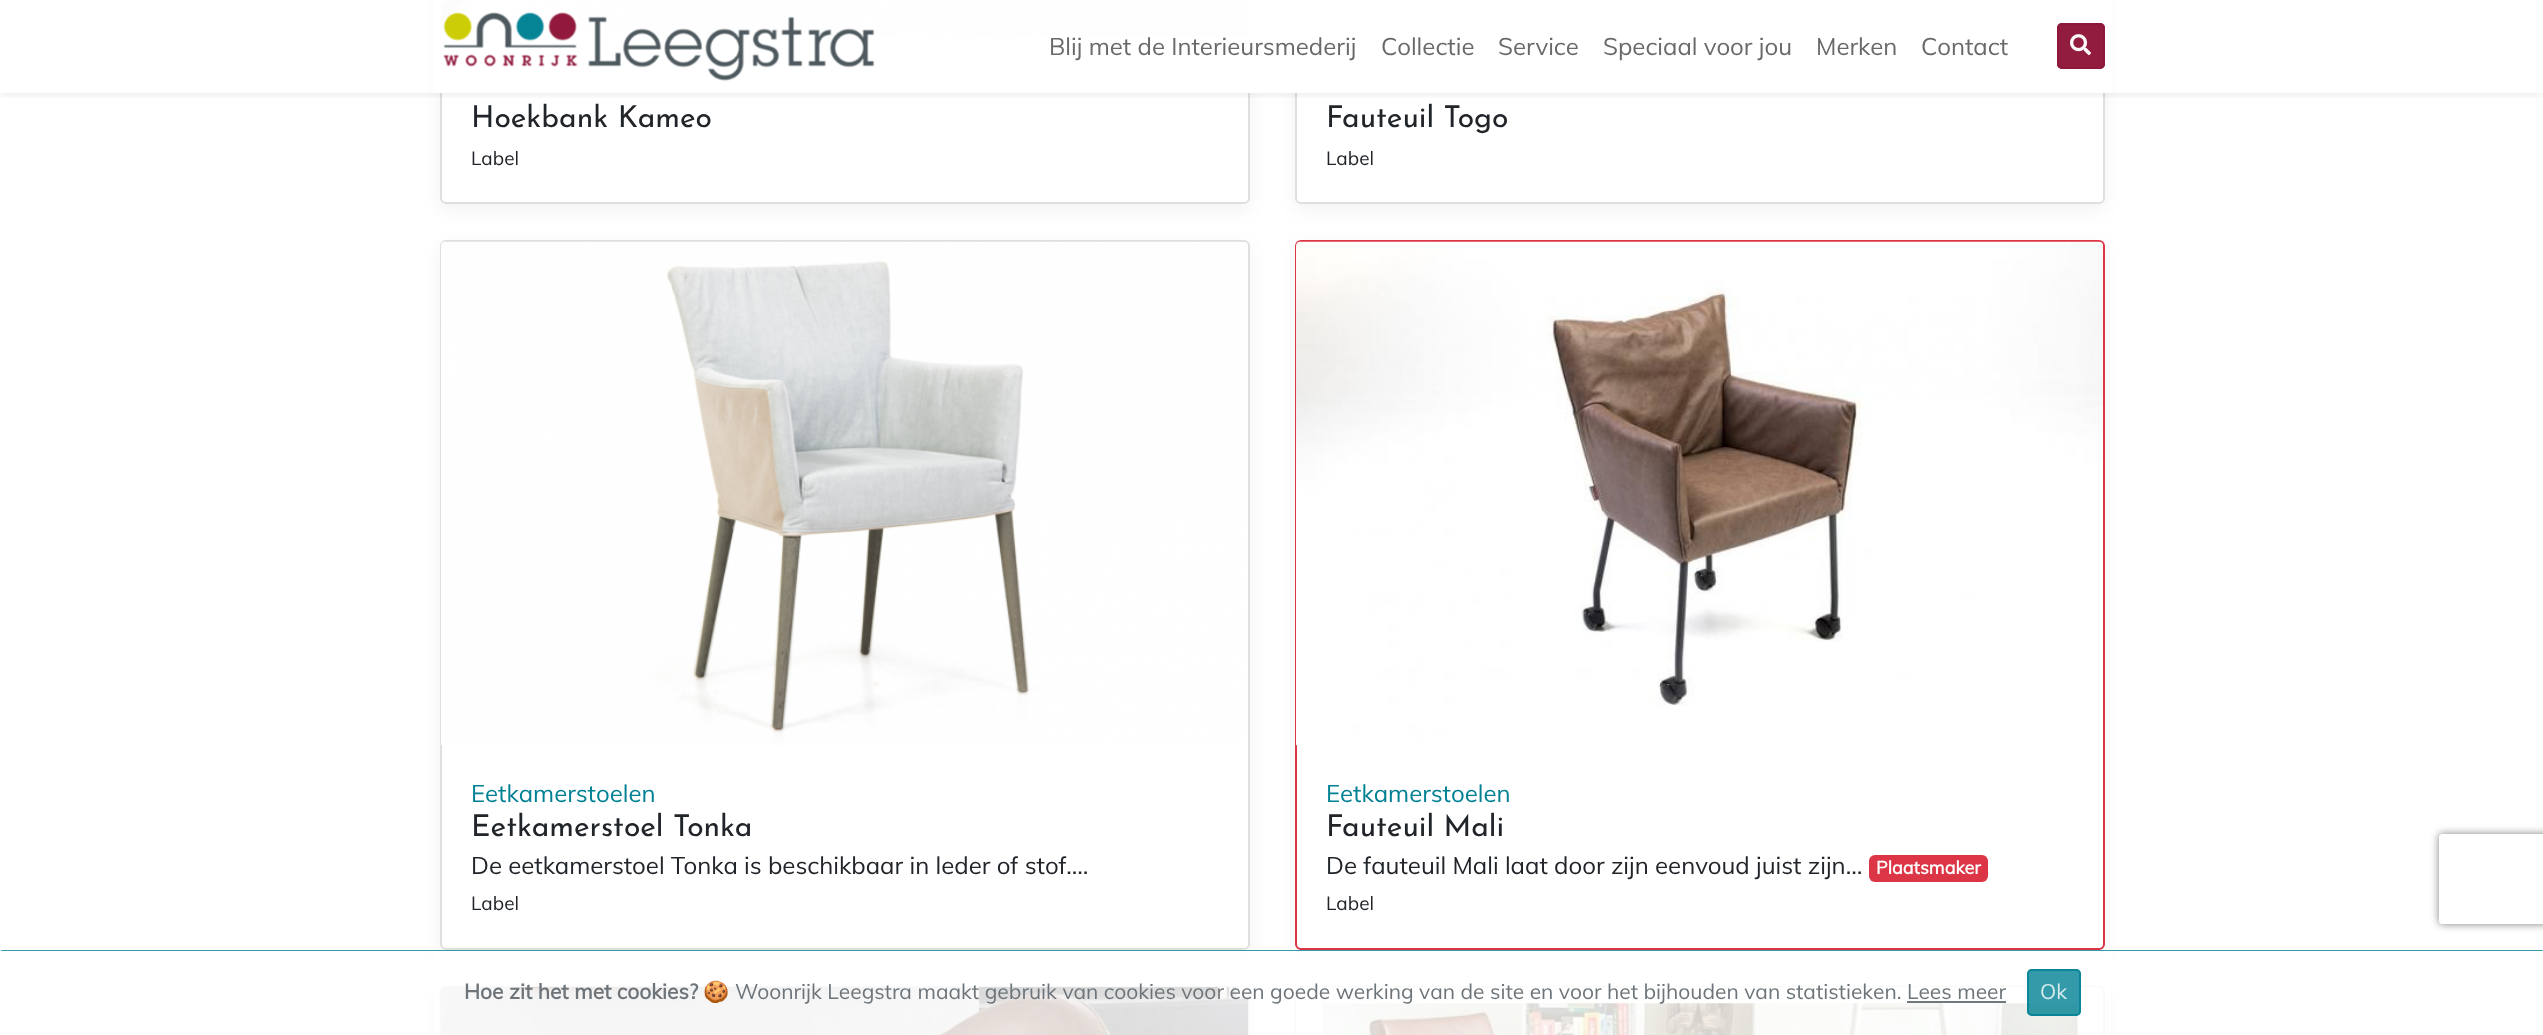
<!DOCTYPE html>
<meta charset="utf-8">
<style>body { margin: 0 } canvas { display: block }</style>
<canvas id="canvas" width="2543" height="1035"></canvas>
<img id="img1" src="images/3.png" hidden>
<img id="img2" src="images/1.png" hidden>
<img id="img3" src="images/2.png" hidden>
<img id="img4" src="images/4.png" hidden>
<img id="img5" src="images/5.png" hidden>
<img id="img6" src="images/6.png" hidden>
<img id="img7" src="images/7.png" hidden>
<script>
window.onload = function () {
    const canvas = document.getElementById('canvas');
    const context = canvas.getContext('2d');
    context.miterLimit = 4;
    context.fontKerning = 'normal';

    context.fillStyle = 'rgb(255, 255, 255)';
    context.fillRect(0, 0, 2543, 1035);
    context.fillStyle = 'rgba(0, 0, 0, 0.05)';
    context.filter = 'blur(9px)';
    context.beginPath();
    context.roundRect(440, -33, 810, 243, 6);
    context.fill();
    context.filter = 'none';
    context.fillStyle = 'rgb(255, 255, 255)';
    context.beginPath();
    context.roundRect(441, -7, 808, 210, 5);
    context.fill();
    context.strokeStyle = 'rgb(223, 223, 223)';
    context.lineWidth = 2;
    context.stroke();
    context.drawImage(document.getElementById('img1'), 441, 0, 807, 36);
    context.fillStyle = 'rgba(0, 0, 0, 0.05)';
    context.filter = 'blur(9px)';
    context.beginPath();
    context.roundRect(1295, -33, 810, 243, 6);
    context.fill();
    context.filter = 'none';
    context.fillStyle = 'rgb(255, 255, 255)';
    context.beginPath();
    context.roundRect(1296, -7, 808, 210, 5);
    context.fill();
    context.stroke();
    context.fillRect(1296, 0, 1, 36);
    context.save();
    context.beginPath();
    context.rect(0, 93, 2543, 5);
    context.clip();
    context.fillStyle = 'rgba(0, 0, 0, 0.1)';
    context.filter = 'blur(6px)';
    context.beginPath();
    context.rect(0, 0, 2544, 93);
    context.fill();
    context.filter = 'none';
    context.restore();
    context.fillStyle = 'rgba(255, 255, 255, 0.98)';
    context.fillRect(433, 0, 1679, 93);
    context.drawImage(document.getElementById('img2'), 443, 12, 432, 69);
    context.fillStyle = 'rgb(145, 28, 61)';
    context.beginPath();
    context.roundRect(2057, 23, 48, 46, 5);
    context.fill();
    context.beginPath();
    context.roundRect(2058, 24, 46, 44, 4);
    context.strokeStyle = 'rgba(143, 23, 57, 0.98)';
    context.stroke();
    context.drawImage(document.getElementById('img3'), 2070, 34, 21, 22);
    context.fillStyle = 'rgba(0, 0, 0, 0.05)';
    context.filter = 'blur(9px)';
    context.beginPath();
    context.roundRect(440, 246, 810, 710, 6);
    context.fill();
    context.filter = 'none';
    context.fillStyle = 'rgb(255, 255, 255)';
    context.beginPath();
    context.roundRect(441, 241, 808, 708, 5);
    context.fill();
    context.strokeStyle = 'rgb(223, 223, 223)';
    context.stroke();
    context.drawImage(document.getElementById('img4'), 441, 241, 807, 505);
    context.fillStyle = 'rgba(0, 0, 0, 0.05)';
    context.filter = 'blur(9px)';
    context.beginPath();
    context.roundRect(1295, 246, 810, 710, 6);
    context.fill();
    context.filter = 'none';
    context.fillStyle = 'rgb(255, 255, 255)';
    context.beginPath();
    context.roundRect(1296, 241, 808, 708, 5);
    context.fill();
    context.strokeStyle = 'rgb(220, 53, 69)';
    context.stroke();
    context.drawImage(document.getElementById('img5'), 1296, 241, 807, 505);
    context.fillStyle = 'rgb(220, 53, 69)';
    context.beginPath();
    context.roundRect(1869, 855, 119, 27, 6);
    context.fill();
    context.fillStyle = 'rgba(0, 0, 0, 0.05)';
    context.filter = 'blur(9px)';
    context.beginPath();
    context.roundRect(440, 992, 810, 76, 6);
    context.fill();
    context.filter = 'none';
    context.beginPath();
    context.roundRect(441, 987, 808, 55, 5);
    context.strokeStyle = 'rgb(223, 223, 223)';
    context.stroke();
    context.drawImage(document.getElementById('img6'), 441, 987, 807, 48);
    context.filter = 'blur(9px)';
    context.beginPath();
    context.roundRect(1295, 992, 810, 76, 6);
    context.fill();
    context.filter = 'none';
    context.beginPath();
    context.roundRect(1296, 987, 808, 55, 5);
    context.stroke();
    context.drawImage(document.getElementById('img7'), 1296, 987, 807, 48);
    context.save();
    context.beginPath();
    context.moveTo(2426, 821);
    context.lineTo(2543, 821);
    context.lineTo(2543, 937);
    context.lineTo(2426, 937);
    context.closePath();
    context.moveTo(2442, 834);
    context.lineTo(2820, 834);
    context.bezierCurveTo(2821.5, 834, 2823, 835.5, 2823, 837);
    context.lineTo(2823, 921);
    context.bezierCurveTo(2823, 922.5, 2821.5, 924, 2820, 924);
    context.lineTo(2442, 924);
    context.bezierCurveTo(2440.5, 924, 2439, 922.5, 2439, 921);
    context.lineTo(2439, 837);
    context.bezierCurveTo(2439, 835.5, 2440.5, 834, 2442, 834);
    context.closePath();
    context.clip('evenodd');
    context.fillStyle = 'rgb(128, 128, 128)';
    context.filter = 'blur(4px)';
    context.beginPath();
    context.roundRect(2439, 834, 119, 90, 3);
    context.fill();
    context.filter = 'none';
    context.restore();
    context.fillStyle = 'rgba(255, 255, 255, 0.8)';
    context.fillRect(434, 950, 1677, 85);
    context.fillStyle = 'rgb(51, 154, 168)';
    context.beginPath();
    context.moveTo(0, 950);
    context.lineTo(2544, 950);
    context.lineTo(2542, 951);
    context.lineTo(2, 951);
    context.closePath();
    context.fill();
    context.fillStyle = 'rgb(112, 120, 125)';
    context.fillRect(1907, 1001, 99, 2);
    context.fillStyle = 'rgba(0, 129, 147, 0.8)';
    context.beginPath();
    context.roundRect(2027, 969, 54, 47, 5);
    context.fill();
    context.beginPath();
    context.roundRect(2028, 970, 52, 45, 4);
    context.strokeStyle = 'rgba(0, 129, 147, 0.8)';
    context.stroke();
    context.font = '24px Muli';
    context.fillStyle = 'rgb(105, 105, 105)';
    context.fillText('Blij met de Interieursmederij', 1049, 55);
    context.fillText('Collectie', 1381, 55);
    context.fillText('Service', 1498, 55);
    context.fillText('Speciaal voor jou', 1603, 55);
    context.fillText('Merken', 1816, 55);
    context.fillText('Contact', 1921, 55);
    context.font = '30px Josefin Sans';
    context.fillStyle = 'rgb(33, 37, 41)';
    context.fillText('Hoekbank Kameo', 471, 127);
    context.font = '19px Muli';
    context.fillText('Label', 471, 165);
    context.font = '30px Josefin Sans';
    context.fillText('Fauteuil Togo', 1326, 127);
    context.font = '19px Muli';
    context.fillText('Label', 1326, 165);
    context.font = '24px Muli';
    context.fillStyle = 'rgb(0, 129, 147)';
    context.fillText('Eetkamerstoelen', 471, 802);
    context.font = '30px Josefin Sans';
    context.fillStyle = 'rgb(33, 37, 41)';
    context.fillText('Eetkamerstoel Tonka', 471, 836);
    context.font = '24px Muli';
    context.fillText('De eetkamerstoel Tonka is beschikbaar in leder of stof.…', 471, 874);
    context.font = '19px Muli';
    context.fillText('Label', 471, 910);
    context.font = '24px Muli';
    context.fillStyle = 'rgb(0, 129, 147)';
    context.fillText('Eetkamerstoelen', 1326, 802);
    context.font = '30px Josefin Sans';
    context.fillStyle = 'rgb(33, 37, 41)';
    context.fillText('Fauteuil Mali', 1326, 836);
    context.font = '24px Muli';
    context.fillText('De fauteuil Mali laat door zijn eenvoud juist zijn…', 1326, 874);
    context.font = 'bold 18px Muli';
    context.fillStyle = 'rgb(255, 255, 255)';
    context.fillText('Plaatsmaker', 1876, 874);
    context.font = '19px Muli';
    context.fillStyle = 'rgb(33, 37, 41)';
    context.fillText('Label', 1326, 910);
    context.font = 'bold 21px Muli';
    context.fillStyle = 'rgb(110, 117, 122)';
    context.fillText('Hoe zit het met cookies?', 464, 999);
    context.font = '21px Noto Color Emoji';
    context.fillText('🍪', 703, 999);
    context.font = '21px Muli';
    context.fillText('Woonrijk Leegstra maakt gebruik van cookies voor een goede werking van de site en voor het bijhouden van statistieken.', 735, 999);
    context.fillText('Lees meer', 1907, 999);
    context.fillStyle = 'rgb(214, 235, 238)';
    context.fillText('Ok', 2040, 999);
};
</script>
